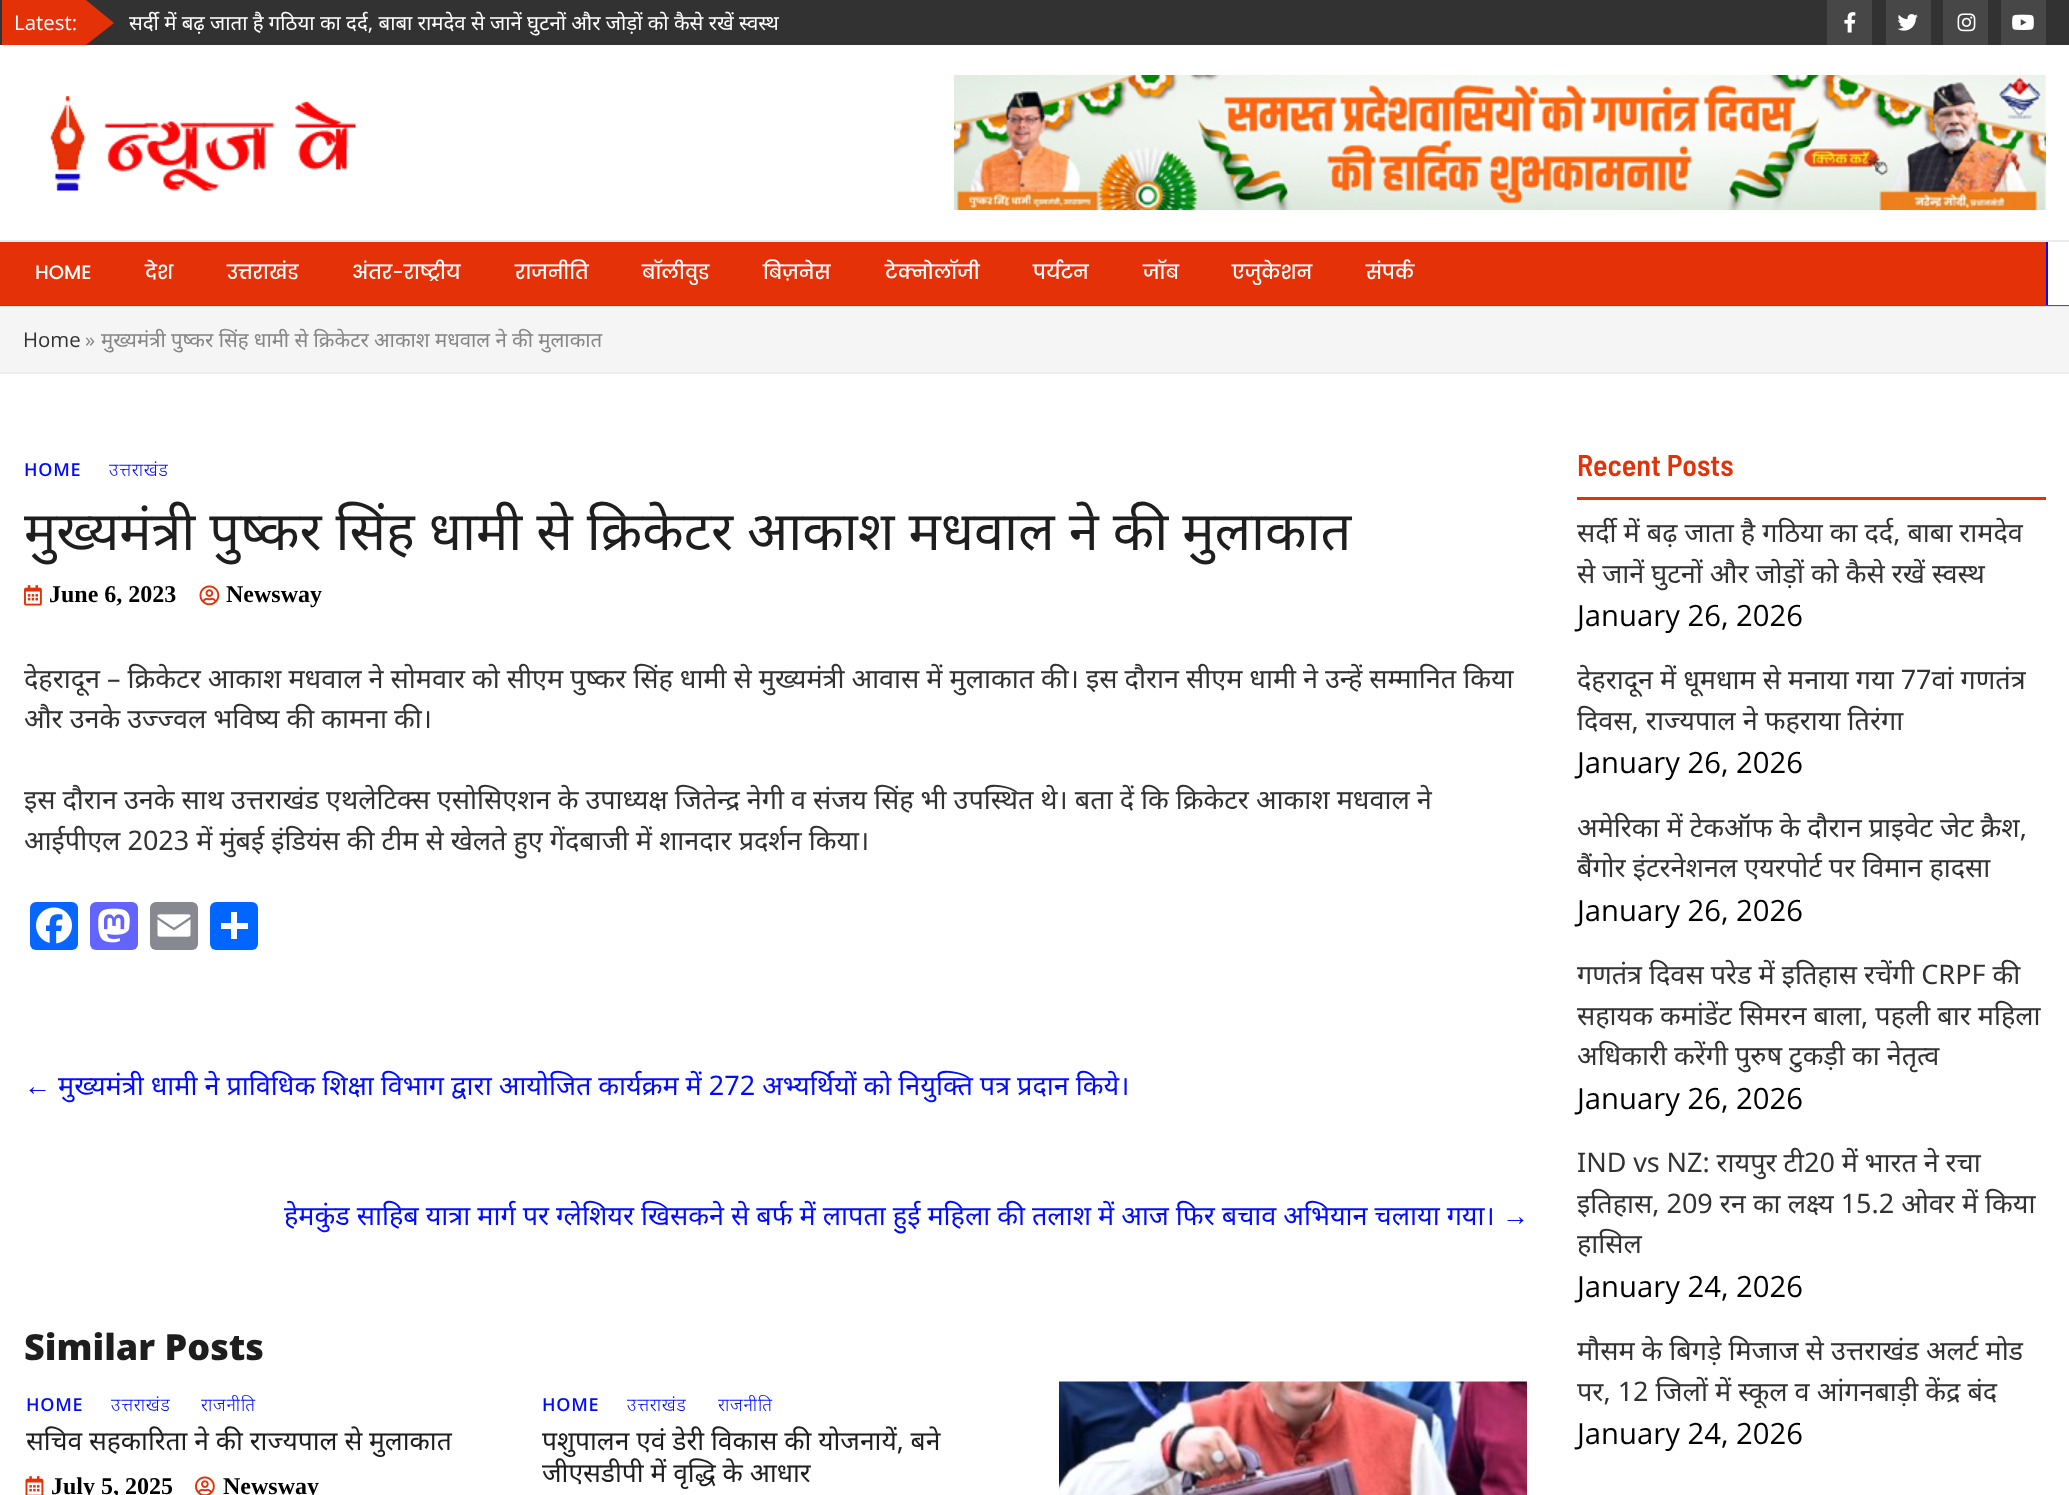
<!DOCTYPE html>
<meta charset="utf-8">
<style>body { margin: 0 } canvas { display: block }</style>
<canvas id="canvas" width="2069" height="1495"></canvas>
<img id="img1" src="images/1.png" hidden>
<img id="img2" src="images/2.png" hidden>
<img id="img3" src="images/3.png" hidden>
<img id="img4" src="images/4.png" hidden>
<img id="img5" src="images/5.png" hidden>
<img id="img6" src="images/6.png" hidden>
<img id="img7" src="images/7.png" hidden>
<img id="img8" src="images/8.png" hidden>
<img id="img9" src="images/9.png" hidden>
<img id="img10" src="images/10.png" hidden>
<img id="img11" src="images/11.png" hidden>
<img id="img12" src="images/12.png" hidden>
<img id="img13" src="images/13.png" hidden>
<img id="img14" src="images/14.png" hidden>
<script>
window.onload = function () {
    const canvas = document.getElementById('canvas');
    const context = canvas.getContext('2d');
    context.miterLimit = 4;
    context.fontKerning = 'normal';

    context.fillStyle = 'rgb(255, 255, 255)';
    context.fillRect(0, 0, 2069, 1495);
    context.fillStyle = 'rgb(50, 50, 50)';
    context.fillRect(0, 0, 2069, 45);
    context.fillStyle = 'rgb(229, 49, 7)';
    context.beginPath();
    context.moveTo(2, 0);
    context.lineTo(2, 45);
    context.lineTo(86, 45);
    context.lineTo(114, 23);
    context.lineTo(86, 0);
    context.closePath();
    context.fill();
    context.fillStyle = 'rgb(71, 71, 71)';
    context.fillRect(1827, 0, 45, 45);
    context.drawImage(document.getElementById('img1'), 1844, 12, 12, 21);
    context.fillRect(1886, 0, 45, 45);
    context.drawImage(document.getElementById('img2'), 1897, 14, 21, 17);
    context.fillRect(1943, 0, 45, 45);
    context.drawImage(document.getElementById('img3'), 1957, 13, 19, 19);
    context.fillRect(2001, 0, 45, 45);
    context.drawImage(document.getElementById('img4'), 2012, 14, 22, 16);
    context.fillStyle = 'rgb(235, 235, 235)';
    context.fillRect(0, 240, 2069, 2);
    context.drawImage(document.getElementById('img5'), 49, 96, 307, 95);
    context.drawImage(document.getElementById('img6'), 954, 75, 1092, 135);
    context.fillStyle = 'rgb(211, 45, 6)';
    context.fillRect(0, 305, 2069, 1);
    context.fillStyle = 'rgb(0, 12, 255)';
    context.fillRect(2046, 242, 2, 63);
    context.fillStyle = 'rgb(229, 49, 7)';
    context.fillRect(0, 242, 2046, 63);
    context.fillStyle = 'rgb(245, 245, 245)';
    context.fillRect(0, 307, 2069, 65);
    context.fillStyle = 'rgb(225, 225, 225)';
    context.fillRect(0, 306, 2069, 1);
    context.fillStyle = 'rgb(238, 238, 238)';
    context.fillRect(0, 372, 2069, 2);
    context.drawImage(document.getElementById('img7'), 24, 585, 18, 21);
    context.drawImage(document.getElementById('img8'), 199, 585, 21, 21);
    context.fillStyle = 'rgb(8, 102, 255)';
    context.beginPath();
    context.roundRect(30, 902, 48, 48, 6);
    context.fill();
    context.drawImage(document.getElementById('img9'), 36, 907, 36, 37);
    context.fillStyle = 'rgb(99, 100, 255)';
    context.beginPath();
    context.roundRect(90, 902, 48, 48, 6);
    context.fill();
    context.drawImage(document.getElementById('img10'), 98, 908, 32, 35);
    context.fillStyle = 'rgb(136, 137, 144)';
    context.beginPath();
    context.roundRect(150, 902, 48, 48, 6);
    context.fill();
    context.drawImage(document.getElementById('img11'), 157, 914, 34, 23);
    context.fillStyle = 'rgb(1, 102, 255)';
    context.beginPath();
    context.roundRect(210, 902, 48, 48, 6);
    context.fill();
    context.fillStyle = 'rgb(255, 255, 255)';
    context.fillRect(231, 912, 6, 27);
    context.fillRect(221, 923, 27, 6);
    context.drawImage(document.getElementById('img12'), 25, 1476, 19, 19);
    context.drawImage(document.getElementById('img13'), 195, 1476, 20, 19);
    context.drawImage(document.getElementById('img14'), 1059, 1381, 468, 114);
    context.fillStyle = 'rgb(229, 49, 7)';
    context.fillRect(1577, 497, 469, 3);
    context.font = '20.4px Open Sans';
    context.fillStyle = 'rgb(255, 255, 255)';
    context.fillText('Latest:', 14, 30);
    context.font = '20.4px Noto Sans';
    context.fillText('सर्दी में बढ़ जाता है गठिया का दर्द, बाबा रामदेव से जानें घुटनों और जोड़ों को कैसे रखें स्वस्थ', 129, 30);
    context.font = '500 19.5px Poppins';
    context.fillText('HOME', 35, 279);
    context.fillText('देश', 145, 279);
    context.fillText('उत्तराखंड', 227, 279);
    context.fillText('अंतर-राष्ट्रीय', 352, 279);
    context.fillText('राजनीति', 515, 279);
    context.fillText('बॉलीवुड', 642, 279);
    context.fillText('बिज़नेस', 763, 279);
    context.fillText('टेक्नोलॉजी', 885, 279);
    context.fillText('पर्यटन', 1033, 279);
    context.fillText('जॉब', 1143, 279);
    context.fillText('एजुकेशन', 1232, 279);
    context.fillText('संपर्क', 1366, 279);
    context.font = '20.4px Open Sans';
    context.fillStyle = 'rgb(50, 50, 50)';
    context.fillText('Home', 23, 347);
    context.fillStyle = 'rgb(134, 134, 134)';
    context.fillText('»', 85, 347);
    context.font = '20.4px Noto Sans';
    context.fillText('मुख्यमंत्री पुष्कर सिंह धामी से क्रिकेटर आकाश मधवाल ने की मुलाकात', 101, 347);
    context.letterSpacing = '0.75px';
    context.font = '600 18px Open Sans';
    context.fillStyle = 'rgb(0, 12, 255)';
    context.fillText('HOME', 24, 476);
    context.font = '300 18px Noto Sans';
    context.fillText('उत्तराखंड', 109, 476);
    context.letterSpacing = '0px';
    context.font = '54px Noto Sans';
    context.fillStyle = 'rgb(30, 30, 30)';
    context.fillText('मुख्यमंत्री पुष्कर सिंह धामी से क्रिकेटर आकाश मधवाल ने की मुलाकात', 24, 550);
    context.font = 'bold 24px Liberation Serif';
    context.fillStyle = 'rgb(0, 0, 0)';
    context.fillText('June 6, 2023', 49, 602);
    context.fillText('Newsway', 226, 602);
    context.font = '27px Noto Sans';
    context.fillStyle = 'rgb(50, 50, 50)';
    context.fillText('देहरादून – क्रिकेटर आकाश मधवाल ने सोमवार को सीएम पुष्कर सिंह धामी से मुख्यमंत्री आवास में मुलाकात की। इस दौरान सीएम धामी ने उन्हें सम्मानित किया', 24, 688);
    context.fillText('और उनके उज्ज्वल भविष्य की कामना की।', 24, 728);
    context.fillText('इस दौरान उनके साथ उत्तराखंड एथलेटिक्स एसोसिएशन के उपाध्यक्ष जितेन्द्र नेगी व संजय सिंह भी उपस्थित थे। बता दें कि क्रिकेटर आकाश मधवाल ने', 24, 809);
    context.fillText('आईपीएल 2023 में मुंबई इंडियंस की टीम से खेलते हुए गेंदबाजी में शानदार प्रदर्शन किया।', 24, 850);
    context.font = '27px Liberation Sans';
    context.fillStyle = 'rgb(0, 12, 255)';
    context.fillText('←', 24, 1095);
    context.font = '27px Noto Sans';
    context.fillText('मुख्यमंत्री धामी ने प्राविधिक शिक्षा विभाग द्वारा आयोजित कार्यक्रम में 272 अभ्यर्थियों को नियुक्ति पत्र प्रदान किये।', 58, 1095);
    context.fillText('हेमकुंड साहिब यात्रा मार्ग पर ग्लेशियर खिसकने से बर्फ में लापता हुई महिला की तलाश में आज फिर बचाव अभियान चलाया गया।', 284, 1225);
    context.font = '27px Liberation Sans';
    context.fillText('→', 1502, 1225);
    context.font = '800 36px Open Sans';
    context.fillStyle = 'rgb(30, 30, 30)';
    context.fillText('Similar Posts', 24, 1360);
    context.letterSpacing = '0.75px';
    context.font = '600 18px Open Sans';
    context.fillStyle = 'rgb(0, 12, 255)';
    context.fillText('HOME', 26, 1411);
    context.font = '300 18px Noto Sans';
    context.fillText('उत्तराखंड', 111, 1411);
    context.fillText('राजनीति', 201, 1411);
    context.letterSpacing = '0px';
    context.font = '26.4px Noto Sans';
    context.fillStyle = 'rgb(30, 30, 30)';
    context.fillText('सचिव सहकारिता ने की राज्यपाल से मुलाकात', 26, 1450);
    context.font = 'bold 24px Liberation Serif';
    context.fillStyle = 'rgb(0, 0, 0)';
    context.fillText('July 5, 2025', 51, 1494);
    context.fillText('Newsway', 223, 1494);
    context.letterSpacing = '0.75px';
    context.font = '600 18px Open Sans';
    context.fillStyle = 'rgb(0, 12, 255)';
    context.fillText('HOME', 542, 1411);
    context.font = '300 18px Noto Sans';
    context.fillText('उत्तराखंड', 627, 1411);
    context.fillText('राजनीति', 718, 1411);
    context.letterSpacing = '0px';
    context.font = '26.4px Noto Sans';
    context.fillStyle = 'rgb(30, 30, 30)';
    context.fillText('पशुपालन एवं डेरी विकास की योजनायें, बने', 542, 1450);
    context.fillText('जीएसडीपी में वृद्धि के आधार', 542, 1482);
    context.font = '600 30px Barlow Semi Condensed';
    context.fillStyle = 'rgb(229, 49, 7)';
    context.fillText('Recent Posts', 1577, 476);
    context.font = '27px Noto Sans';
    context.fillStyle = 'rgb(50, 50, 50)';
    context.fillText('सर्दी में बढ़ जाता है गठिया का दर्द, बाबा रामदेव', 1577, 542);
    context.fillText('से जानें घुटनों और जोड़ों को कैसे रखें स्वस्थ', 1577, 583);
    context.font = '29.25px Open Sans';
    context.fillStyle = 'rgb(0, 0, 0)';
    context.fillText('January 26, 2026', 1577, 626);
    context.font = '27px Noto Sans';
    context.fillStyle = 'rgb(50, 50, 50)';
    context.fillText('देहरादून में धूमधाम से मनाया गया 77वां गणतंत्र', 1577, 689);
    context.fillText('दिवस, राज्यपाल ने फहराया तिरंगा', 1577, 730);
    context.font = '29.25px Open Sans';
    context.fillStyle = 'rgb(0, 0, 0)';
    context.fillText('January 26, 2026', 1577, 773);
    context.font = '27px Noto Sans';
    context.fillStyle = 'rgb(50, 50, 50)';
    context.fillText('अमेरिका में टेकऑफ के दौरान प्राइवेट जेट क्रैश,', 1577, 837);
    context.fillText('बैंगोर इंटरनेशनल एयरपोर्ट पर विमान हादसा', 1577, 877);
    context.font = '29.25px Open Sans';
    context.fillStyle = 'rgb(0, 0, 0)';
    context.fillText('January 26, 2026', 1577, 921);
    context.font = '27px Noto Sans';
    context.fillStyle = 'rgb(50, 50, 50)';
    context.fillText('गणतंत्र दिवस परेड में इतिहास रचेंगी CRPF की', 1577, 984);
    context.fillText('सहायक कमांडेंट सिमरन बाला, पहली बार महिला', 1577, 1025);
    context.fillText('अधिकारी करेंगी पुरुष टुकड़ी का नेतृत्व', 1577, 1065);
    context.font = '29.25px Open Sans';
    context.fillStyle = 'rgb(0, 0, 0)';
    context.fillText('January 26, 2026', 1577, 1109);
    context.wordSpacing = '-0.25px';
    context.font = '27px Noto Sans';
    context.fillStyle = 'rgb(50, 50, 50)';
    context.fillText('IND vs NZ: रायपुर टी20 में भारत ने रचा', 1577, 1172);
    context.wordSpacing = '0px';
    context.fillText('इतिहास, 209 रन का लक्ष्य 15.2 ओवर में किया', 1577, 1213);
    context.fillText('हासिल', 1577, 1253);
    context.font = '29.25px Open Sans';
    context.fillStyle = 'rgb(0, 0, 0)';
    context.fillText('January 24, 2026', 1577, 1297);
    context.font = '27px Noto Sans';
    context.fillStyle = 'rgb(50, 50, 50)';
    context.fillText('मौसम के बिगड़े मिजाज से उत्तराखंड अलर्ट मोड', 1577, 1360);
    context.fillText('पर, 12 जिलों में स्कूल व आंगनबाड़ी केंद्र बंद', 1577, 1401);
    context.font = '29.25px Open Sans';
    context.fillStyle = 'rgb(0, 0, 0)';
    context.fillText('January 24, 2026', 1577, 1444);
};
</script>
